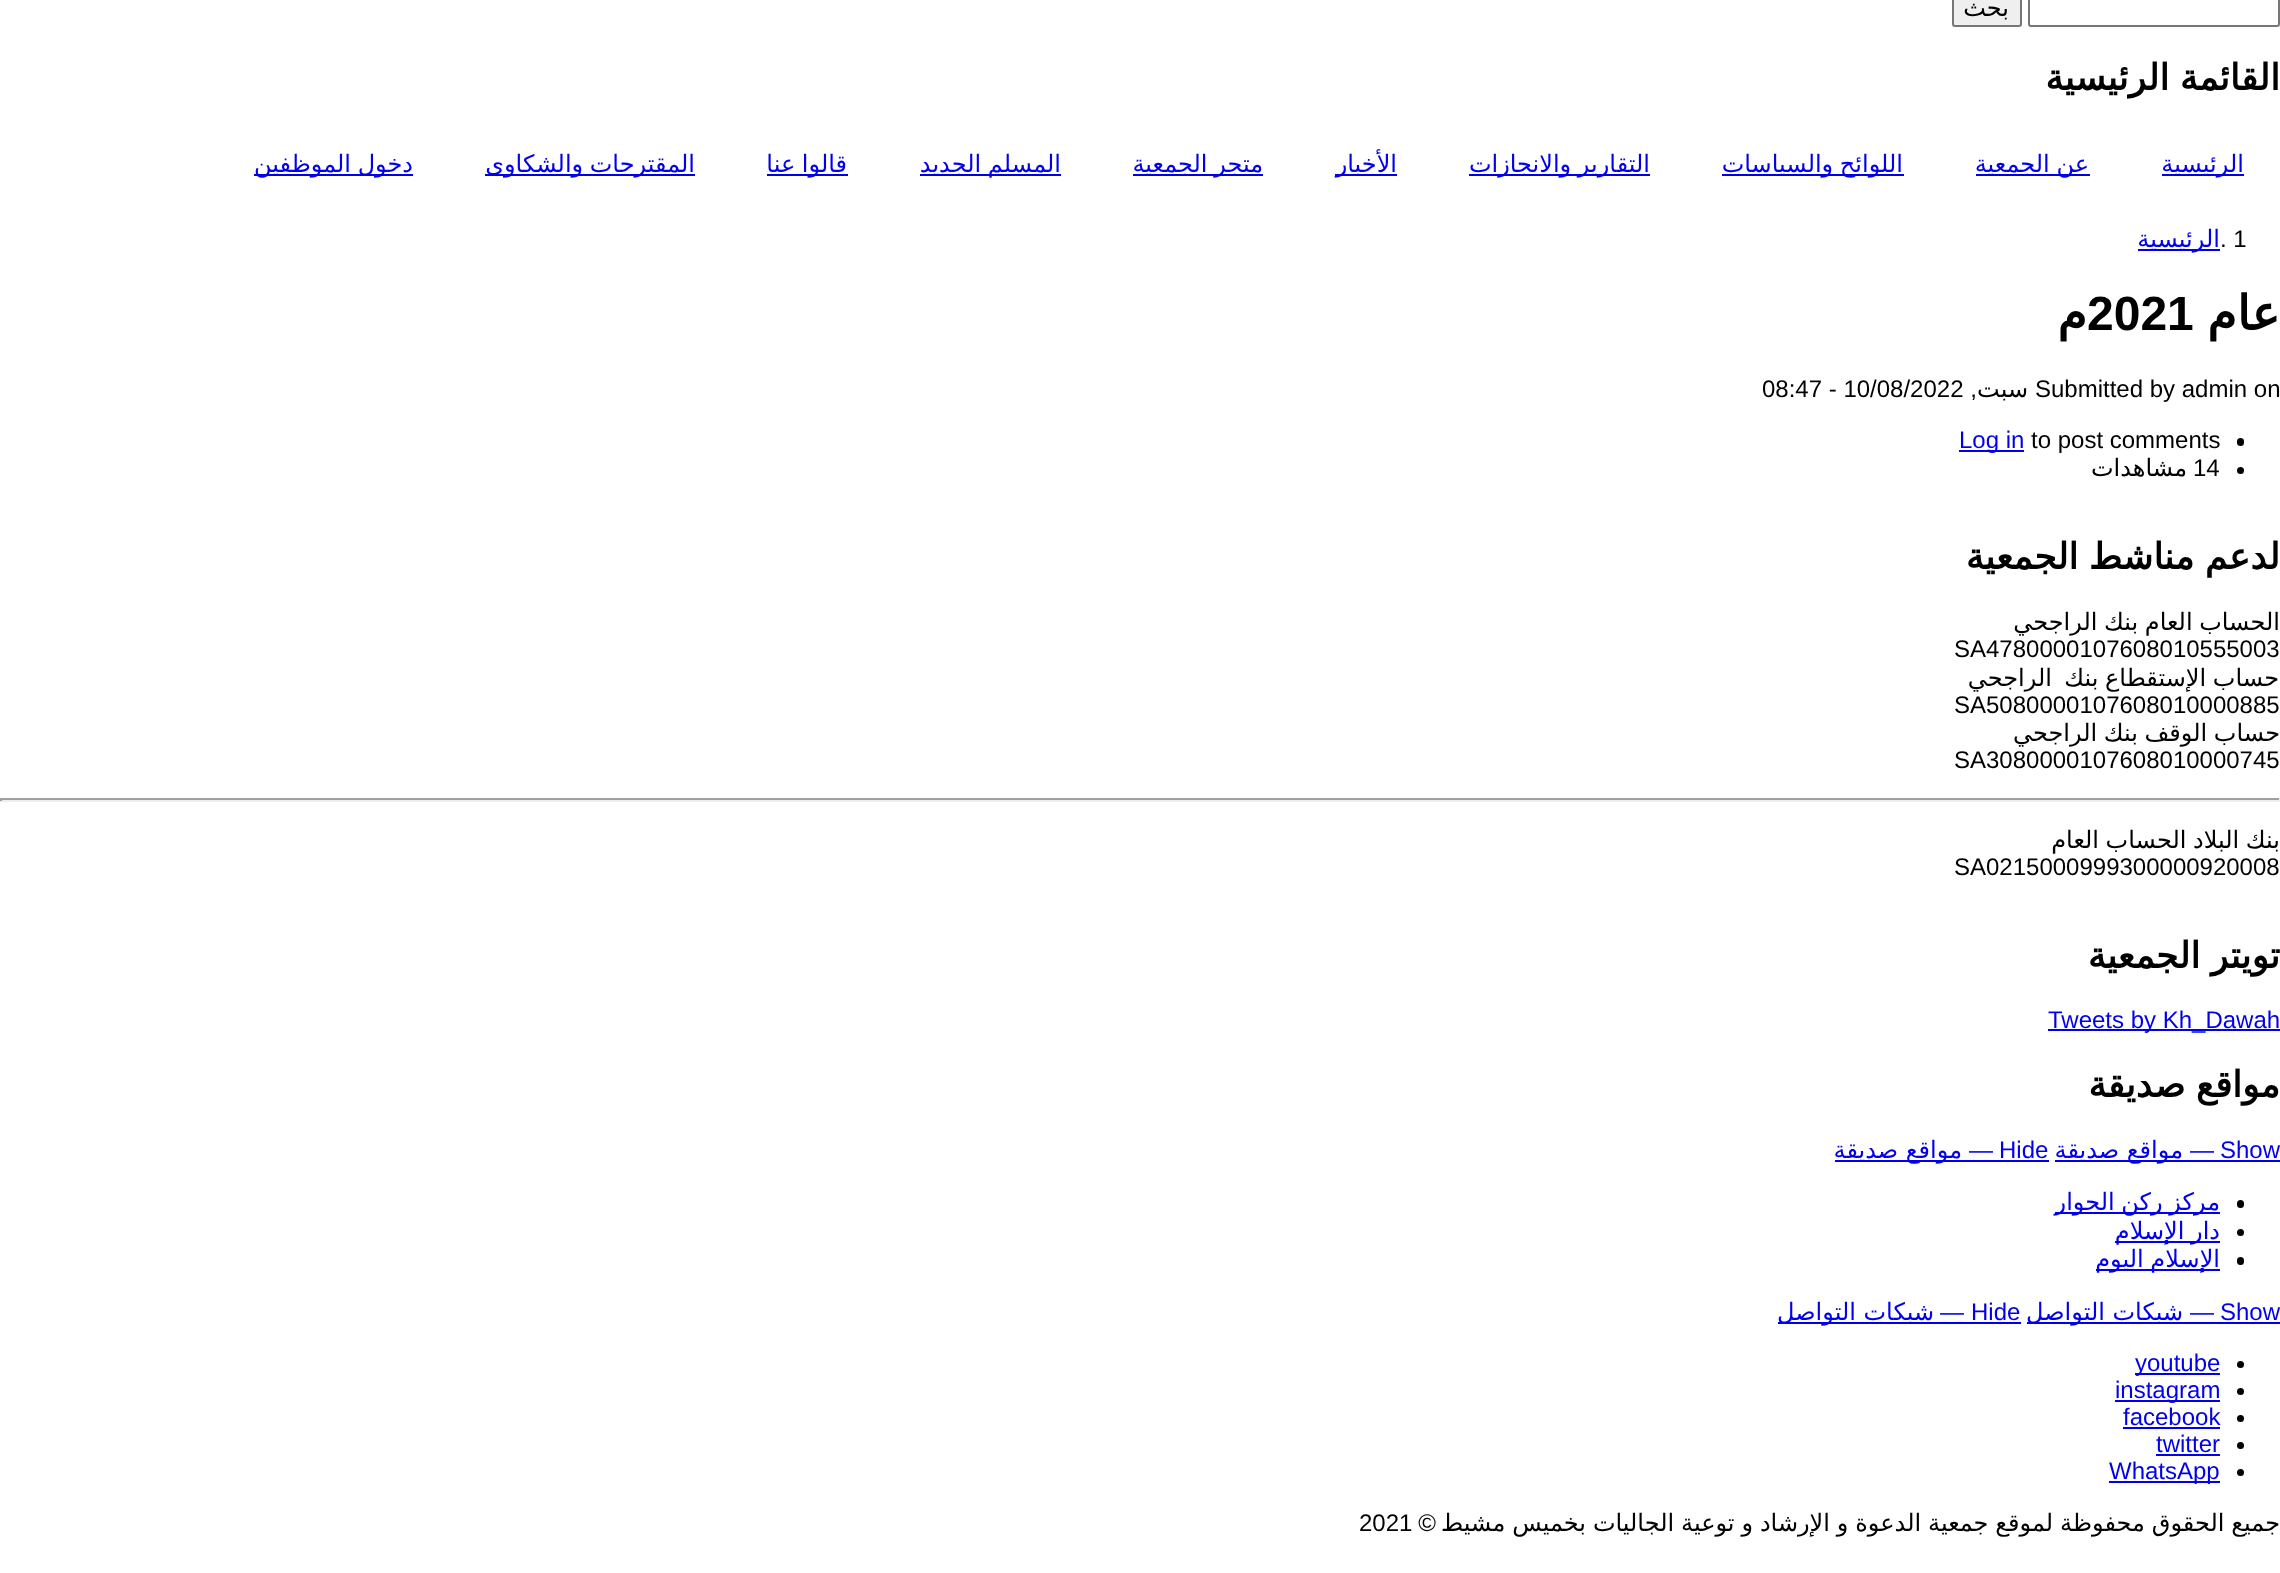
<!DOCTYPE html>
<meta charset="utf-8">
<style>body { margin: 0 } canvas { display: block }</style>
<canvas id="canvas" width="2280" height="1573"></canvas>
<script>
window.onload = function () {
    const canvas = document.getElementById('canvas');
    const context = canvas.getContext('2d');
    context.miterLimit = 4;
    context.fontKerning = 'normal';

    context.fillStyle = 'rgb(255, 255, 255)';
    context.fillRect(0, 0, 2280, 1573);
    context.beginPath();
    context.roundRect(2029, -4, 250, 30, 2);
    context.strokeStyle = 'rgb(118, 118, 118)';
    context.lineWidth = 2;
    context.stroke();
    context.fillStyle = 'rgb(239, 239, 239)';
    context.beginPath();
    context.roundRect(1953, -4, 68, 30, 2);
    context.fill();
    context.stroke();
    context.fillStyle = 'rgb(0, 0, 238)';
    context.fillRect(2162, 174, 82, 2);
    context.fillRect(1976, 174, 114, 2);
    context.fillRect(1722, 174, 182, 2);
    context.fillRect(1469, 174, 181, 2);
    context.fillRect(1335, 174, 62, 2);
    context.fillRect(1133, 174, 130, 2);
    context.fillRect(920, 174, 141, 2);
    context.fillRect(767, 174, 81, 2);
    context.fillRect(485, 174, 210, 2);
    context.fillRect(254, 174, 159, 2);
    context.fillRect(2138, 249, 82, 2);
    context.fillStyle = 'rgb(0, 0, 0)';
    context.beginPath();
    context.roundRect(2237, 438, 7, 8, 3.5);
    context.fill();
    context.fillStyle = 'rgb(0, 0, 238)';
    context.fillRect(1959, 450, 65, 2);
    context.fillStyle = 'rgb(0, 0, 0)';
    context.beginPath();
    context.arc(2240.5, 470.5, 3.5, 0, 2 * Math.PI);
    context.fill();
    context.fillStyle = 'rgb(159, 159, 159)';
    context.fillRect(0, 798, 2280, 2);
    context.fillStyle = 'rgb(238, 238, 238)';
    context.fillRect(2279, 798, 1, 3);
    context.fillRect(0, 800, 2280, 2);
    context.fillStyle = 'rgb(159, 159, 159)';
    context.fillRect(0, 798, 2, 3);
    context.fillStyle = 'rgb(0, 0, 238)';
    context.fillRect(2048, 1029, 232, 2);
    context.fillRect(2055, 1160, 225, 2);
    context.fillRect(1835, 1160, 214, 2);
    context.fillStyle = 'rgb(0, 0, 0)';
    context.beginPath();
    context.roundRect(2237, 1200, 7, 8, 3.5);
    context.fill();
    context.fillStyle = 'rgb(0, 0, 238)';
    context.fillRect(2055, 1212, 165, 2);
    context.fillStyle = 'rgb(0, 0, 0)';
    context.beginPath();
    context.arc(2240.5, 1232.5, 3.5, 0, 2 * Math.PI);
    context.fill();
    context.fillStyle = 'rgb(0, 0, 238)';
    context.fillRect(2115, 1241, 105, 2);
    context.fillStyle = 'rgb(0, 0, 0)';
    context.beginPath();
    context.roundRect(2237, 1257, 7, 8, 3.5);
    context.fill();
    context.fillStyle = 'rgb(0, 0, 238)';
    context.fillRect(2096, 1269, 124, 2);
    context.fillRect(2027, 1322, 253, 2);
    context.fillRect(1778, 1322, 243, 2);
    context.fillStyle = 'rgb(0, 0, 0)';
    context.beginPath();
    context.arc(2240.5, 1364.5, 3.5, 0, 2 * Math.PI);
    context.fill();
    context.fillStyle = 'rgb(0, 0, 238)';
    context.fillRect(2135, 1373, 85, 2);
    context.fillStyle = 'rgb(0, 0, 0)';
    context.beginPath();
    context.arc(2240.5, 1391.5, 3.5, 0, 2 * Math.PI);
    context.fill();
    context.fillStyle = 'rgb(0, 0, 238)';
    context.fillRect(2115, 1400, 105, 2);
    context.fillStyle = 'rgb(0, 0, 0)';
    context.beginPath();
    context.arc(2240.5, 1418.5, 3.5, 0, 2 * Math.PI);
    context.fill();
    context.fillStyle = 'rgb(0, 0, 238)';
    context.fillRect(2123, 1427, 97, 2);
    context.fillStyle = 'rgb(0, 0, 0)';
    context.beginPath();
    context.arc(2240.5, 1445.5, 3.5, 0, 2 * Math.PI);
    context.fill();
    context.fillStyle = 'rgb(0, 0, 238)';
    context.fillRect(2156, 1454, 64, 2);
    context.fillStyle = 'rgb(0, 0, 0)';
    context.beginPath();
    context.arc(2240.5, 1472.5, 3.5, 0, 2 * Math.PI);
    context.fill();
    context.fillStyle = 'rgb(0, 0, 238)';
    context.fillRect(2109, 1481, 111, 2);
    context.direction = 'rtl';
    context.font = '24px DejaVu Sans';
    context.fillStyle = 'rgb(0, 0, 0)';
    context.fillText('بحث', 2009, 16);
    context.wordSpacing = '-1px';
    context.font = 'bold 36px DejaVu Sans';
    context.fillText('القائمة الرئيسية', 2280, 90);
    context.wordSpacing = '0px';
    context.font = '24px DejaVu Sans';
    context.fillStyle = 'rgb(0, 0, 238)';
    context.fillText('الرئيسية', 2244, 172);
    context.wordSpacing = '-1px';
    context.fillText('عن الجمعية', 2089, 172);
    context.fillText('اللوائح والسياسات', 1903, 172);
    context.fillText('التقارير والانجازات', 1650, 172);
    context.wordSpacing = '0px';
    context.fillText('الأخبار', 1397, 172);
    context.wordSpacing = '-1px';
    context.fillText('متجر الجمعية', 1263, 172);
    context.fillText('المسلم الجديد', 1061, 172);
    context.fillText('قالوا عنا', 847, 172);
    context.fillText('المقترحات والشكاوى', 695, 172);
    context.fillText('دخول الموظفين', 413, 172);
    context.wordSpacing = '0px';
    context.direction = 'ltr';
    context.font = '24px Liberation Sans';
    context.fillStyle = 'rgb(0, 0, 0)';
    context.fillText('. 1', 2220, 247);
    context.direction = 'rtl';
    context.font = '24px DejaVu Sans';
    context.fillStyle = 'rgb(0, 0, 238)';
    context.fillText('الرئيسية', 2220, 247);
    context.font = 'bold 48px DejaVu Sans';
    context.fillStyle = 'rgb(0, 0, 0)';
    context.fillText('عام', 2280, 330);
    context.direction = 'ltr';
    context.font = 'bold 48px Liberation Sans';
    context.fillText('2021', 2087, 330);
    context.direction = 'rtl';
    context.font = 'bold 48px DejaVu Sans';
    context.fillText('م', 2087, 330);
    context.direction = 'ltr';
    context.font = '24px Liberation Sans';
    context.fillText('Submitted by admin on', 2035, 397);
    context.direction = 'rtl';
    context.font = '24px DejaVu Sans';
    context.fillText('سبت', 2028, 397);
    context.font = '24px Liberation Sans';
    context.fillText(',', 1977, 397);
    context.direction = 'ltr';
    context.fillText('08:47 - 10/08/2022', 1762, 397);
    context.fillText('to post comments', 2031, 448);
    context.fillStyle = 'rgb(0, 0, 238)';
    context.fillText('Log in', 1959, 448);
    context.fillStyle = 'rgb(0, 0, 0)';
    context.fillText('14', 2193, 476);
    context.direction = 'rtl';
    context.font = '24px DejaVu Sans';
    context.fillText('مشاهدات', 2187, 476);
    context.wordSpacing = '-1px';
    context.font = 'bold 36px DejaVu Sans';
    context.fillText('لدعم مناشط الجمعية', 2280, 569);
    context.font = '24px DejaVu Sans';
    context.fillText('الحساب العام بنك الراجحي', 2280, 630);
    context.wordSpacing = '0px';
    context.direction = 'ltr';
    context.font = '24px Liberation Sans';
    context.fillText('SA4780000107608010555003', 1954, 657);
    context.wordSpacing = '-1px';
    context.direction = 'rtl';
    context.font = '24px DejaVu Sans';
    context.fillText('حساب الإستقطاع بنك', 2279, 686);
    context.wordSpacing = '0px';
    context.fillText('الراجحي', 2052, 686);
    context.direction = 'ltr';
    context.font = '24px Liberation Sans';
    context.fillText('SA5080000107608010000885', 1954, 713);
    context.wordSpacing = '-1px';
    context.direction = 'rtl';
    context.font = '24px DejaVu Sans';
    context.fillText('حساب الوقف بنك الراجحي', 2280, 741);
    context.wordSpacing = '0px';
    context.direction = 'ltr';
    context.font = '24px Liberation Sans';
    context.fillText('SA3080000107608010000745', 1954, 768);
    context.wordSpacing = '-1px';
    context.direction = 'rtl';
    context.font = '24px DejaVu Sans';
    context.fillText('بنك البلاد الحساب العام', 2280, 848);
    context.wordSpacing = '0px';
    context.direction = 'ltr';
    context.font = '24px Liberation Sans';
    context.fillText('SA0215000999300000920008', 1954, 875);
    context.wordSpacing = '-1px';
    context.direction = 'rtl';
    context.font = 'bold 36px DejaVu Sans';
    context.fillText('تويتر الجمعية', 2280, 968);
    context.wordSpacing = '0px';
    context.direction = 'ltr';
    context.font = '24px Liberation Sans';
    context.fillStyle = 'rgb(0, 0, 238)';
    context.fillText('Tweets by Kh_Dawah', 2048, 1028);
    context.wordSpacing = '-1px';
    context.direction = 'rtl';
    context.font = 'bold 36px DejaVu Sans';
    context.fillStyle = 'rgb(0, 0, 0)';
    context.fillText('مواقع صديقة', 2280, 1097);
    context.wordSpacing = '0px';
    context.direction = 'ltr';
    context.font = '24px Liberation Sans';
    context.fillStyle = 'rgb(0, 0, 238)';
    context.fillText('Show', 2220, 1158);
    context.direction = 'rtl';
    context.fillText('—', 2214, 1158);
    context.font = '24px DejaVu Sans';
    context.fillText('مواقع صديقة', 2183, 1158);
    context.direction = 'ltr';
    context.font = '24px Liberation Sans';
    context.fillText('Hide', 1999, 1158);
    context.direction = 'rtl';
    context.fillText('—', 1993, 1158);
    context.font = '24px DejaVu Sans';
    context.fillText('مواقع صديقة', 1962, 1158);
    context.wordSpacing = '-1px';
    context.fillText('مركز ركن الحوار', 2220, 1210);
    context.fillText('دار الإسلام', 2220, 1239);
    context.fillText('الإسلام اليوم', 2220, 1267);
    context.wordSpacing = '0px';
    context.direction = 'ltr';
    context.font = '24px Liberation Sans';
    context.fillText('Show', 2220, 1320);
    context.direction = 'rtl';
    context.fillText('—', 2214, 1320);
    context.font = '24px DejaVu Sans';
    context.fillText('شبكات التواصل', 2183, 1320);
    context.direction = 'ltr';
    context.font = '24px Liberation Sans';
    context.fillText('Hide', 1971, 1320);
    context.direction = 'rtl';
    context.fillText('—', 1964, 1320);
    context.font = '24px DejaVu Sans';
    context.fillText('شبكات التواصل', 1934, 1320);
    context.direction = 'ltr';
    context.font = '24px Liberation Sans';
    context.fillText('youtube', 2135, 1371);
    context.fillText('instagram', 2115, 1398);
    context.fillText('facebook', 2123, 1425);
    context.fillText('twitter', 2156, 1452);
    context.fillText('WhatsApp', 2109, 1479);
    context.wordSpacing = '-0.75px';
    context.direction = 'rtl';
    context.font = '24px DejaVu Sans';
    context.fillStyle = 'rgb(0, 0, 0)';
    context.fillText('جميع الحقوق محفوظة لموقع جمعية الدعوة و الإرشاد و توعية الجاليات بخميس مشيط', 2280, 1531);
    context.wordSpacing = '0px';
    context.font = '24px Liberation Sans';
    context.fillText('©', 1436, 1531);
    context.direction = 'ltr';
    context.fillText('2021', 1359, 1531);
};
</script>
